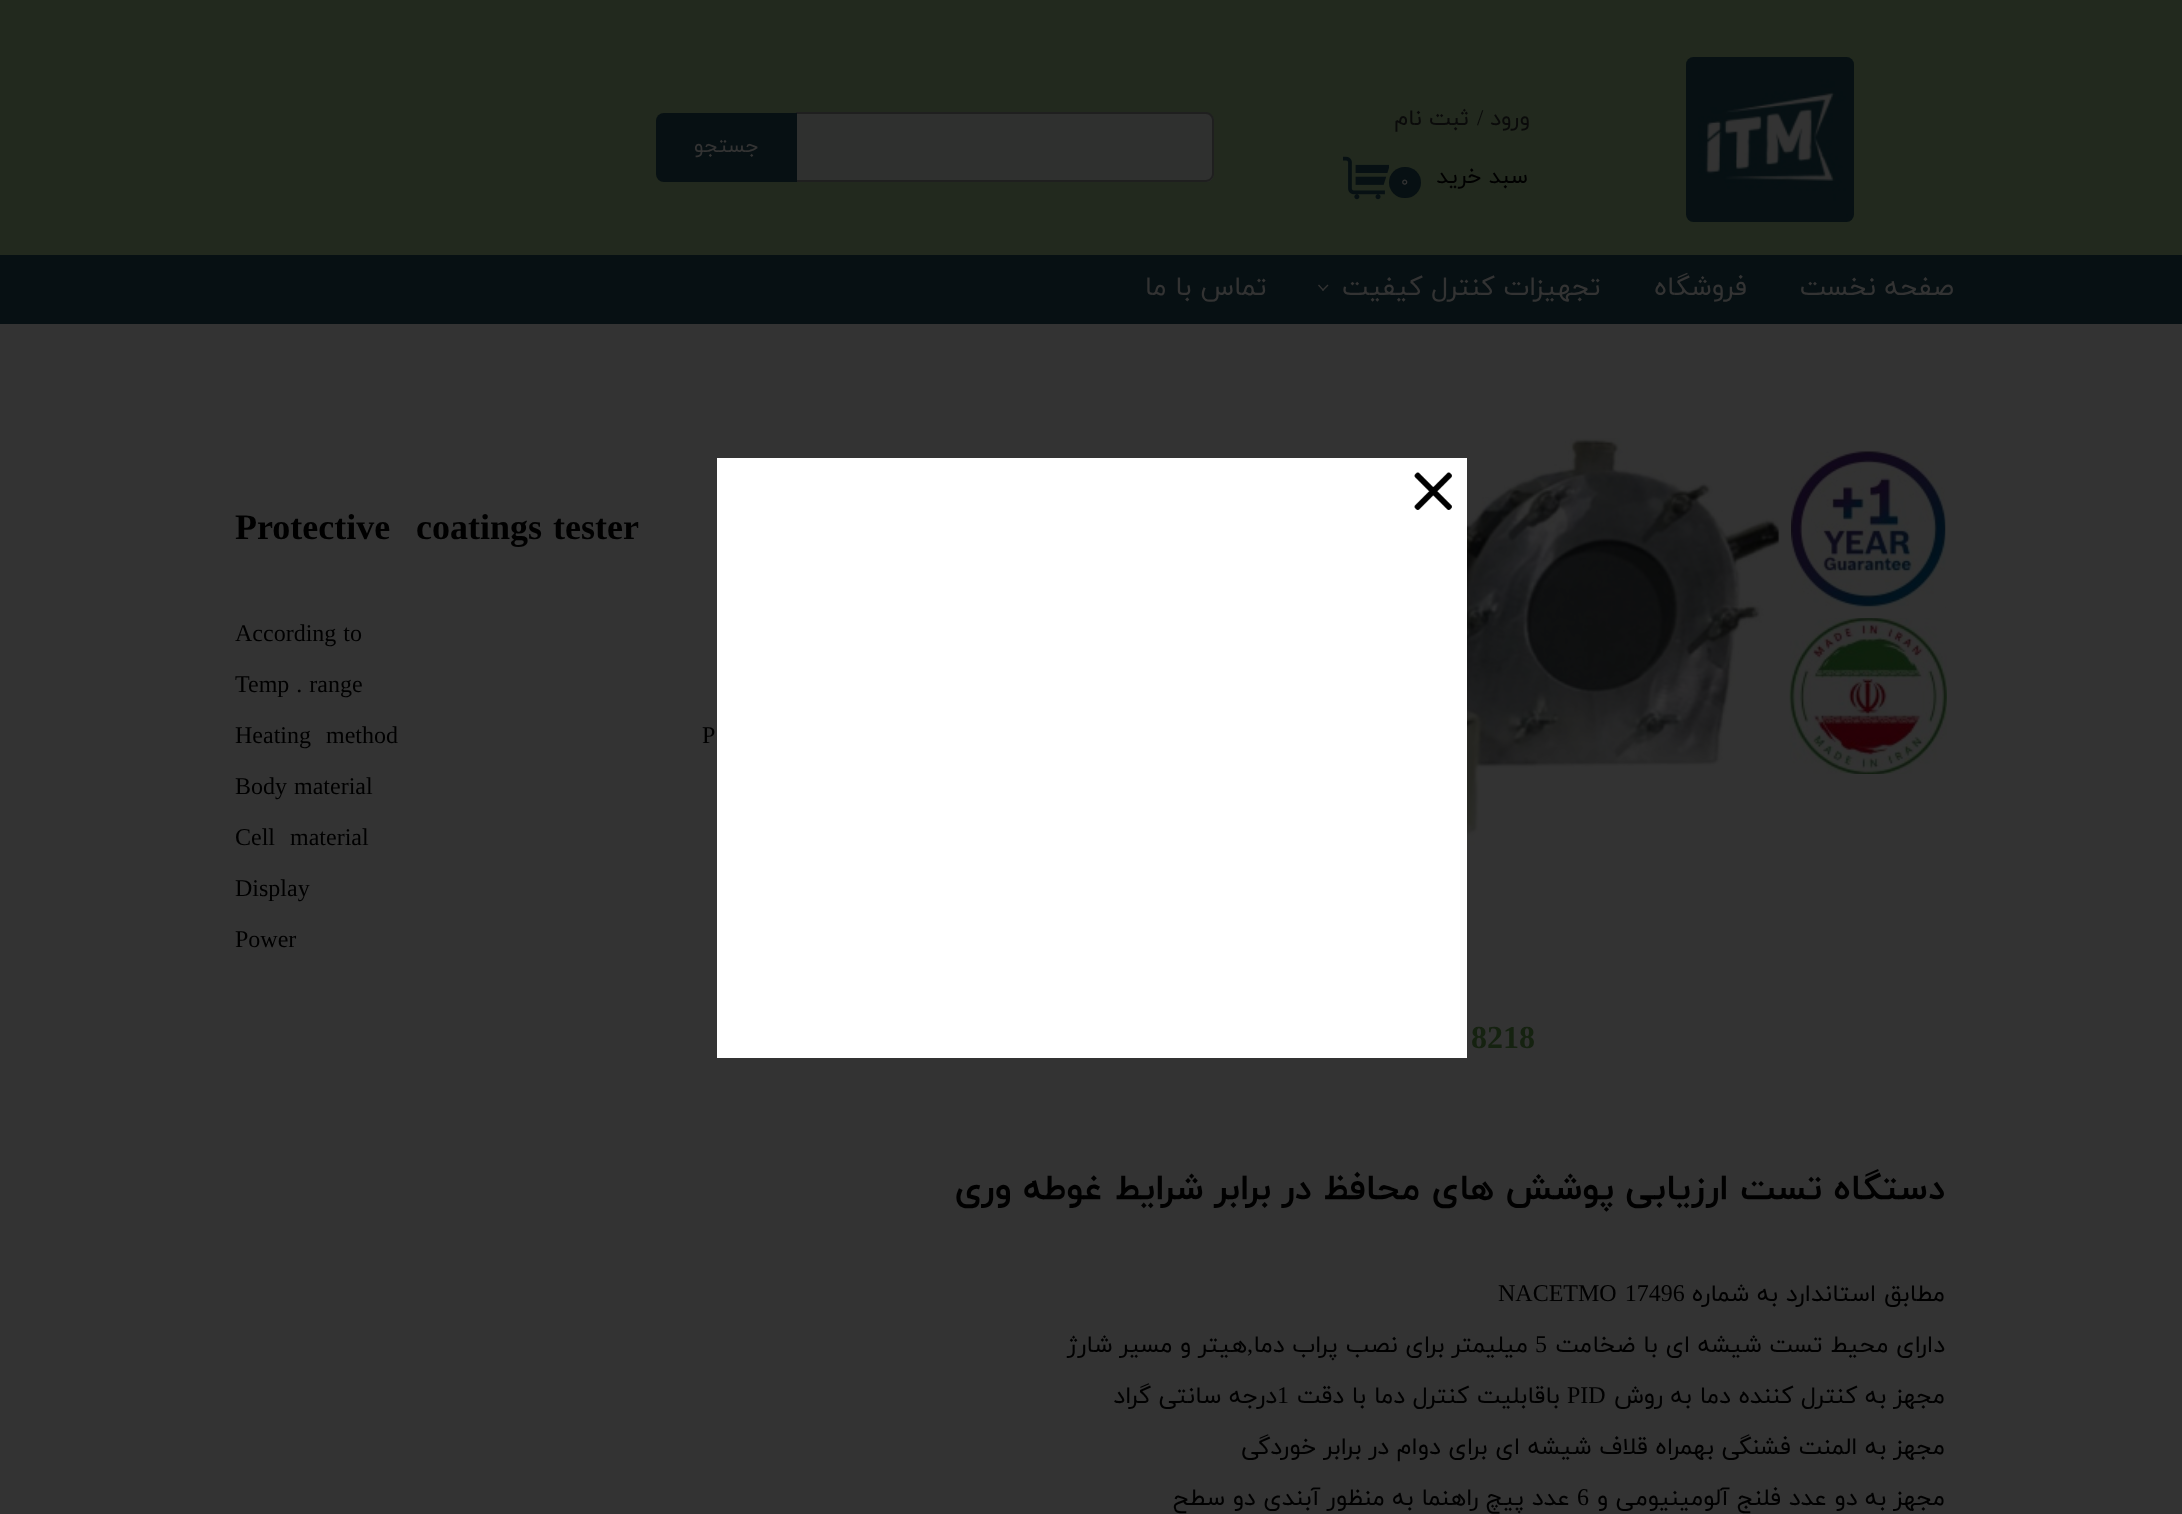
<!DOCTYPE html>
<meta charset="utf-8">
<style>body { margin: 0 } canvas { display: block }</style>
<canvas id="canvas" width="2182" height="1514"></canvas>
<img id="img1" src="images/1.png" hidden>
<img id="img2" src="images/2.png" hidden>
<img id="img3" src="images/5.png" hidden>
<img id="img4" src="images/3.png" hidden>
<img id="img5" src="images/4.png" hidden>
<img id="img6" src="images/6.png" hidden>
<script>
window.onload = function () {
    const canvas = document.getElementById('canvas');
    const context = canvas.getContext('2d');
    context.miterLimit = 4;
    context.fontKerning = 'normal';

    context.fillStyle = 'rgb(51, 51, 51)';
    context.fillRect(0, 0, 2182, 1514);
    context.fillStyle = 'rgb(34, 41, 30)';
    context.fillRect(0, 0, 2182, 255);
    context.drawImage(document.getElementById('img1'), 1686, 57, 168, 165);
    context.fillStyle = 'rgb(47, 48, 47)';
    context.beginPath();
    context.roundRect(797, 113, 417, 69, [0, 8, 8, 0]);
    context.fill();
    context.fillStyle = 'rgb(31, 31, 31)';
    context.beginPath();
    context.moveTo(796, 112);
    context.lineTo(1206, 112);
    context.bezierCurveTo(1210, 112, 1214, 116, 1214, 120);
    context.lineTo(1214, 174);
    context.bezierCurveTo(1214, 178, 1210, 182, 1206, 182);
    context.lineTo(796, 182);
    context.closePath();
    context.moveTo(796, 114);
    context.lineTo(1206, 114);
    context.bezierCurveTo(1209, 114, 1212, 117, 1212, 120);
    context.lineTo(1212, 174);
    context.bezierCurveTo(1212, 177, 1209, 180, 1206, 180);
    context.lineTo(796, 180);
    context.closePath();
    context.fill('evenodd');
    context.fillStyle = 'rgb(7, 16, 19)';
    context.beginPath();
    context.roundRect(656, 113, 141, 69, [8, 0, 0, 8]);
    context.fill();
    context.beginPath();
    context.roundRect(1389, 167, 32, 31, 15.5);
    context.fill();
    context.drawImage(document.getElementById('img2'), 1343, 156, 46, 44);
    context.fillRect(0, 255, 2182, 69);
    context.fillStyle = 'rgb(51, 51, 51)';
    context.beginPath();
    context.moveTo(1327.5, 284.5);
    context.lineTo(1328.5, 285.5);
    context.lineTo(1323, 291);
    context.lineTo(1322, 290);
    context.closePath();
    context.fill();
    context.beginPath();
    context.moveTo(1319, 284.5);
    context.lineTo(1324, 290);
    context.lineTo(1323, 291);
    context.lineTo(1318, 285.5);
    context.closePath();
    context.fill();
    context.drawImage(document.getElementById('img3'), 1033, 438, 747, 468);
    context.fillStyle = 'rgb(255, 255, 255)';
    context.fillRect(717, 458, 750, 600);
    context.drawImage(document.getElementById('img4'), 1414, 472, 38, 38);
    context.drawImage(document.getElementById('img5'), 1791, 450, 155, 158);
    context.drawImage(document.getElementById('img6'), 1789, 618, 158, 156);
    context.direction = 'rtl';
    context.font = '22.5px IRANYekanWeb';
    context.fillStyle = 'rgb(10, 10, 10)';
    context.fillText('ورود', 1530, 125);
    context.direction = 'ltr';
    context.font = '22.5px Liberation Serif';
    context.fillText('/', 1477, 125);
    context.direction = 'rtl';
    context.font = '22.5px IRANYekanWeb';
    context.fillText('ثبت نام', 1469, 125);
    context.font = '21px IRANYekanWeb';
    context.fillStyle = 'rgb(51, 51, 51)';
    context.fillText('جستجو', 759, 152);
    context.font = '22.5px IRANYekanWeb';
    context.fillStyle = 'rgb(0, 0, 0)';
    context.fillText('سبد خرید', 1528, 183);
    context.direction = 'ltr';
    context.font = '15px IRANYekanWeb';
    context.fillStyle = 'rgb(51, 51, 51)';
    context.fillText('۰', 1401, 186);
    context.direction = 'rtl';
    context.font = '27px IRANYekanWeb';
    context.fillText('صفحه نخست', 1954, 295);
    context.fillText('فروشگاه', 1747, 295);
    context.fillText('تجهیزات کنترل کیفیت', 1601, 295);
    context.fillText('تماس با ما', 1267, 295);
    context.wordSpacing = '2px';
    context.direction = 'ltr';
    context.font = 'bold 36px Liberation Serif';
    context.fillStyle = 'rgb(0, 0, 0)';
    context.fillText('coatings tester', 416, 539);
    context.wordSpacing = '0px';
    context.fillText('Protective', 235, 539);
    context.wordSpacing = '1px';
    context.font = '24px Liberation Serif';
    context.fillText('According to', 235, 641);
    context.fillText('Temp . range', 235, 692);
    context.wordSpacing = '0px';
    context.fillText('P', 702, 743);
    context.fillText('method', 326, 743);
    context.fillText('Heating', 235, 743);
    context.wordSpacing = '1px';
    context.fillText('Body material', 235, 794);
    context.wordSpacing = '0px';
    context.fillText('material', 290, 845);
    context.fillText('Cell', 235, 845);
    context.fillText('Display', 235, 896);
    context.fillText('Power', 235, 947);
    context.font = 'bold 32px Liberation Serif';
    context.fillStyle = 'rgb(21, 34, 16)';
    context.fillText('8218', 1471, 1048);
    context.direction = 'rtl';
    context.font = 'bold 36px IRANYekanWeb';
    context.fillStyle = 'rgb(0, 0, 0)';
    context.fillText('دستگاه تست ارزیابی پوشش های محافظ در برابر شرایط غوطه وری', 1945, 1199);
    context.font = '24px IRANYekanWeb';
    context.fillText('مطابق استاندارد به شماره', 1945, 1301);
    context.wordSpacing = '2px';
    context.direction = 'ltr';
    context.font = '24px Liberation Serif';
    context.fillText('NACETMO 17496', 1498, 1301);
    context.wordSpacing = '0px';
    context.direction = 'rtl';
    context.font = '24px IRANYekanWeb';
    context.fillText('دارای محیط تست شیشه ای با ضخامت', 1945, 1352);
    context.direction = 'ltr';
    context.font = '24px Liberation Serif';
    context.fillText('5', 1535, 1352);
    context.direction = 'rtl';
    context.font = '24px IRANYekanWeb';
    context.fillText('میلیمتر برای نصب پراب دما', 1528, 1352);
    context.font = '24px Liberation Serif';
    context.fillText(',', 1253, 1352);
    context.font = '24px IRANYekanWeb';
    context.fillText('هیتر و مسیر شارژ', 1247, 1352);
    context.fillText('مجهز به کنترل کننده دما به روش', 1945, 1403);
    context.direction = 'ltr';
    context.font = '24px Liberation Serif';
    context.fillText('PID', 1567, 1403);
    context.direction = 'rtl';
    context.font = '24px IRANYekanWeb';
    context.fillText('باقابلیت کنترل دما با دقت', 1560, 1403);
    context.direction = 'ltr';
    context.font = '24px Liberation Serif';
    context.fillText('1', 1277, 1403);
    context.direction = 'rtl';
    context.font = '24px IRANYekanWeb';
    context.fillText('درجه سانتی گراد', 1277, 1403);
    context.fillText('مجهز به المنت فشنگی بهمراه قلاف شیشه ای برای دوام در برابر خوردگی', 1945, 1454);
    context.fillText('مجهز به دو عدد فلنج آلومینیومی و', 1945, 1505);
    context.direction = 'ltr';
    context.font = '24px Liberation Serif';
    context.fillText('6', 1577, 1505);
    context.direction = 'rtl';
    context.font = '24px IRANYekanWeb';
    context.fillText('عدد پیچ راهنما به منظور آبندی دو سطح', 1570, 1505);
};
</script>
